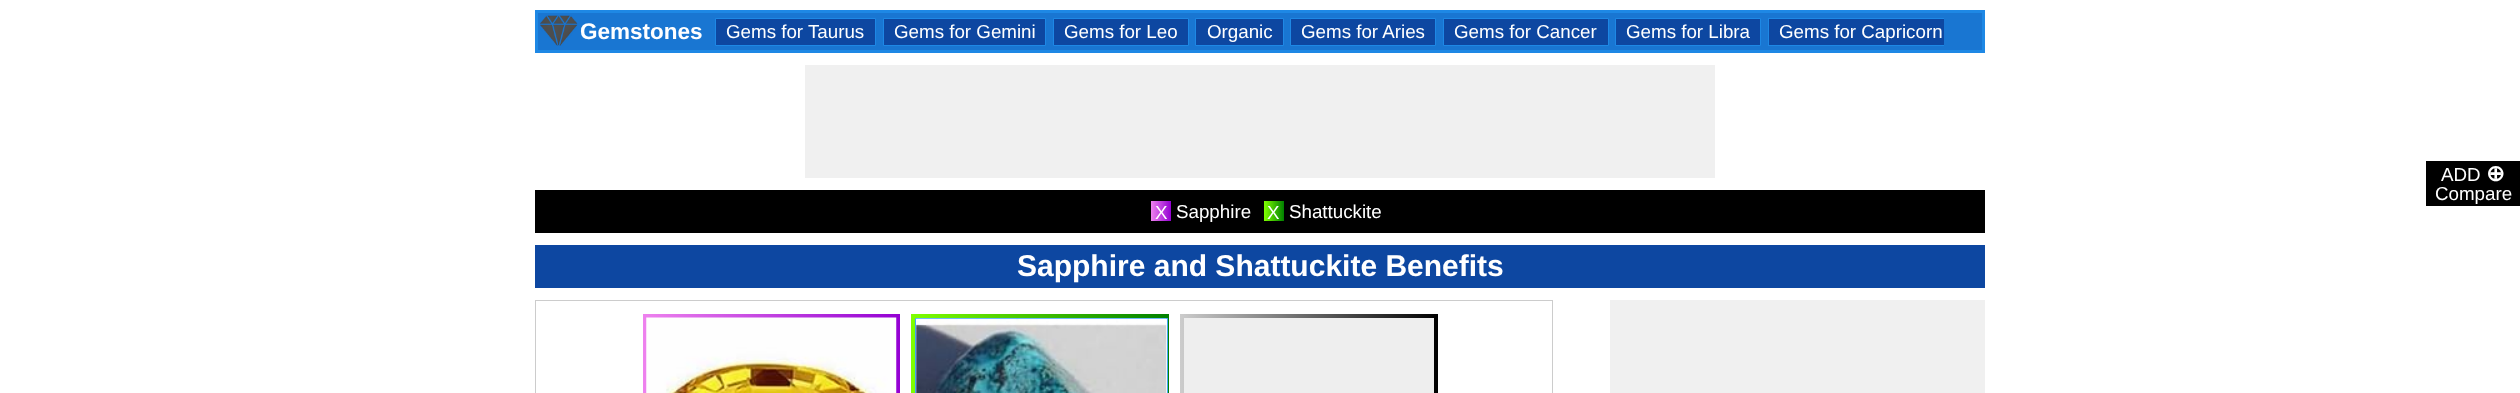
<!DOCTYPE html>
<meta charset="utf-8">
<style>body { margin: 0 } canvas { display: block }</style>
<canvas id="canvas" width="2520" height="393"></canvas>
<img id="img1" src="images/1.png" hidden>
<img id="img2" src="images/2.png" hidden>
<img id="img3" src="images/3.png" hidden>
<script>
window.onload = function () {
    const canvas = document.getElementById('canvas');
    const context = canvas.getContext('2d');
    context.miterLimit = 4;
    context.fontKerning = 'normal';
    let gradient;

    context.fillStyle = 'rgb(255, 255, 255)';
    context.fillRect(0, 0, 2520, 393);
    context.fillStyle = 'rgb(25, 118, 210)';
    context.beginPath();
    context.rect(536.5, 11.5, 1447, 40);
    context.fill();
    context.strokeStyle = 'rgb(30, 136, 229)';
    context.lineWidth = 3;
    context.stroke();
    context.drawImage(document.getElementById('img1'), 540, 15, 38, 31);
    context.fillStyle = 'rgb(13, 71, 161)';
    context.beginPath();
    context.rect(715.5, 18.5, 160, 27);
    context.fill();
    context.lineWidth = 1;
    context.stroke();
    context.beginPath();
    context.rect(883.5, 18.5, 162, 27);
    context.fill();
    context.stroke();
    context.beginPath();
    context.rect(1053.5, 18.5, 135, 27);
    context.fill();
    context.stroke();
    context.beginPath();
    context.rect(1195.5, 18.5, 88, 27);
    context.fill();
    context.stroke();
    context.beginPath();
    context.rect(1290.5, 18.5, 145, 27);
    context.fill();
    context.stroke();
    context.beginPath();
    context.rect(1443.5, 18.5, 165, 27);
    context.fill();
    context.stroke();
    context.beginPath();
    context.rect(1615.5, 18.5, 145, 27);
    context.fill();
    context.stroke();
    context.fillRect(1769, 19, 175, 26);
    context.save();
    context.beginPath();
    context.rect(715, 14, 1229, 36);
    context.clip();
    context.strokeRect(1768.5, 18.5, 185, 27);
    context.restore();
    context.fillStyle = 'rgb(240, 240, 240)';
    context.fillRect(805, 65, 910, 113);
    context.fillStyle = 'rgb(0, 0, 0)';
    context.fillRect(2426, 161, 94, 45);
    context.fillRect(535, 190, 1450, 43);
    gradient = context.createLinearGradient(1151, 211, 1171, 211);
    gradient.addColorStop(0, 'rgb(238, 130, 238)');
    gradient.addColorStop(1, 'rgb(148, 0, 211)');
    context.fillStyle = gradient;
    context.fillRect(1151, 201, 20, 20);
    gradient = context.createLinearGradient(1264, 211, 1284, 211);
    gradient.addColorStop(0, 'rgb(127, 255, 0)');
    gradient.addColorStop(1, 'rgb(0, 128, 0)');
    context.fillStyle = gradient;
    context.fillRect(1264, 201, 20, 20);
    context.fillStyle = 'rgb(13, 71, 161)';
    context.fillRect(535, 245, 1450, 43);
    context.strokeStyle = 'rgb(204, 204, 204)';
    context.strokeRect(535.5, 300.5, 1017, 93);
    gradient = context.createLinearGradient(643, 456, 900, 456);
    gradient.addColorStop(0, 'rgb(238, 130, 238)');
    gradient.addColorStop(1, 'rgb(148, 0, 211)');
    context.fillStyle = gradient;
    context.fillRect(643, 314, 257, 79);
    context.drawImage(document.getElementById('img2'), 646, 317, 251, 76);
    gradient = context.createLinearGradient(911, 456, 1169, 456);
    gradient.addColorStop(0, 'rgb(127, 255, 0)');
    gradient.addColorStop(1, 'rgb(0, 128, 0)');
    context.fillStyle = gradient;
    context.fillRect(911, 314, 258, 79);
    context.fillStyle = 'rgb(255, 255, 255)';
    context.beginPath();
    context.rect(915.5, 318.5, 252, 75);
    context.fill();
    context.strokeStyle = 'rgb(66, 165, 245)';
    context.stroke();
    context.drawImage(document.getElementById('img3'), 916, 318, 251, 75);
    gradient = context.createLinearGradient(1180, 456, 1438, 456);
    gradient.addColorStop(0, 'rgb(204, 204, 204)');
    gradient.addColorStop(1, 'rgb(0, 0, 0)');
    context.fillStyle = gradient;
    context.fillRect(1180, 314, 258, 79);
    context.fillStyle = 'rgb(238, 238, 238)';
    context.fillRect(1184, 318, 250, 75);
    context.fillStyle = 'rgb(240, 240, 240)';
    context.fillRect(1610, 300, 375, 93);
    context.font = 'bold 22.5px Liberation Sans';
    context.fillStyle = 'rgb(255, 255, 255)';
    context.fillText('Gemstones', 580, 39);
    context.font = '18.75px Liberation Sans';
    context.fillText('Gems for Taurus', 726, 38);
    context.fillText('Gems for Gemini', 894, 38);
    context.fillText('Gems for Leo', 1064, 38);
    context.fillText('Organic', 1207, 38);
    context.fillText('Gems for Aries', 1301, 38);
    context.fillText('Gems for Cancer', 1454, 38);
    context.fillText('Gems for Libra', 1626, 38);
    context.fillText('Gems for Capricorn', 1779, 38);
    context.fillText('ADD', 2441, 181);
    context.font = 'bold 22.5px DejaVu Sans';
    context.fillText('⊕', 2486, 181);
    context.font = '18.75px Liberation Sans';
    context.fillText('Compare', 2435, 200);
    context.fillText('X', 1155, 219);
    context.fillText('Sapphire', 1176, 218);
    context.fillText('X', 1267, 219);
    context.fillText('Shattuckite', 1289, 218);
    context.font = 'bold 30px Liberation Sans';
    context.fillText('Sapphire and Shattuckite Benefits', 1017, 276);
};
</script>
